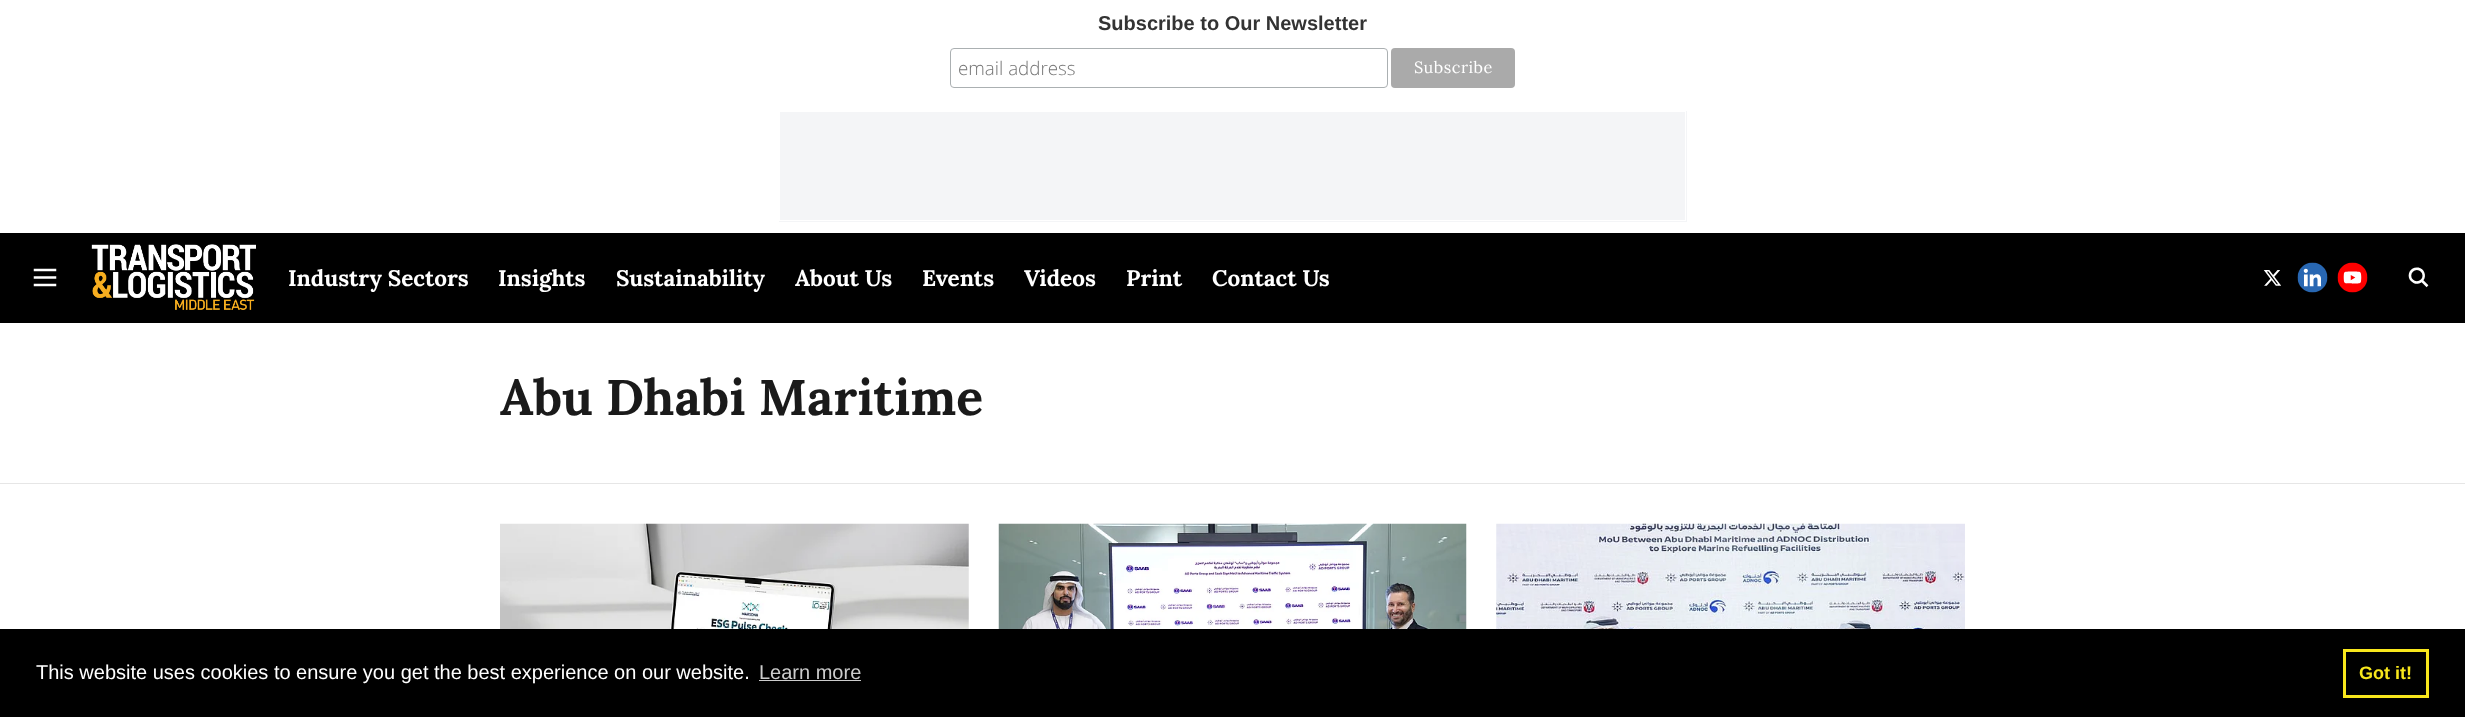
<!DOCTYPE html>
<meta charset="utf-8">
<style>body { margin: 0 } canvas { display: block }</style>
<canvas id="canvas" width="2465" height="717"></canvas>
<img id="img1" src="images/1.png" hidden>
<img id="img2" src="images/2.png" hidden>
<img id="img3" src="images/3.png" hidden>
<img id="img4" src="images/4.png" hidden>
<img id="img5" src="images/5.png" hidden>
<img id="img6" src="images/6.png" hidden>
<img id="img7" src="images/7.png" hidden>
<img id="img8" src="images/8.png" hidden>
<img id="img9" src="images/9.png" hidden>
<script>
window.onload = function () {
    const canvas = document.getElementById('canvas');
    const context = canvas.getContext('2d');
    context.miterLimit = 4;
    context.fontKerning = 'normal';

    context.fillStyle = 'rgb(255, 255, 255)';
    context.fillRect(0, 0, 2465, 717);
    context.beginPath();
    context.roundRect(950.5, 48.5, 437, 39, 3.5);
    context.strokeStyle = 'rgb(171, 176, 178)';
    context.stroke();
    context.fillStyle = 'rgb(170, 170, 170)';
    context.beginPath();
    context.roundRect(1391, 48, 124, 40, 4);
    context.fill();
    context.fillStyle = 'rgb(244, 245, 247)';
    context.fillRect(779, 111, 908, 111);
    context.strokeStyle = 'rgb(255, 255, 255)';
    context.strokeRect(779.5, 111.5, 906, 109);
    context.fillStyle = 'rgb(0, 0, 0)';
    context.fillRect(0, 233, 2465, 90);
    context.drawImage(document.getElementById('img1'), 33, 268, 24, 19);
    context.drawImage(document.getElementById('img2'), 91, 244, 165, 66);
    context.drawImage(document.getElementById('img3'), 2263, 270, 18, 16);
    context.drawImage(document.getElementById('img4'), 2297, 262, 31, 31);
    context.drawImage(document.getElementById('img5'), 2337, 262, 31, 31);
    context.drawImage(document.getElementById('img6'), 2408, 267, 21, 21);
    context.fillStyle = 'rgb(230, 230, 230)';
    context.fillRect(0, 483, 2465, 1);
    context.drawImage(document.getElementById('img7'), 500, 523, 469, 106);
    context.drawImage(document.getElementById('img8'), 998, 523, 469, 106);
    context.drawImage(document.getElementById('img9'), 1496, 523, 469, 106);
    context.fillStyle = 'rgb(0, 0, 0)';
    context.fillRect(0, 629, 2465, 88);
    context.fillStyle = 'rgb(204, 204, 204)';
    context.fillRect(759, 680, 102, 1);
    context.strokeStyle = 'rgb(248, 231, 28)';
    context.lineWidth = 3;
    context.strokeRect(2344.5, 650.5, 83, 46);
    context.font = 'bold 20px Liberation Sans';
    context.fillStyle = 'rgb(51, 51, 51)';
    context.fillText('Subscribe to Our Newsletter', 1098, 30);
    context.font = '300 18.75px Open Sans';
    context.fillStyle = 'rgb(117, 117, 117)';
    context.fillText('email address', 958, 75);
    context.letterSpacing = '0.5px';
    context.font = '16.25px Lora';
    context.fillStyle = 'rgb(255, 255, 255)';
    context.fillText('Subscribe', 1414, 73);
    context.letterSpacing = '0px';
    context.font = 'bold 22.5px Lora';
    context.fillText('Industry Sectors', 288, 286);
    context.fillText('Insights', 498, 286);
    context.fillText('Sustainability', 616, 286);
    context.fillText('About Us', 795, 286);
    context.fillText('Events', 922, 286);
    context.fillText('Videos', 1024, 286);
    context.fillText('Print', 1126, 286);
    context.fillText('Contact Us', 1212, 286);
    context.font = 'bold 50px Lora';
    context.fillStyle = 'rgb(26, 26, 26)';
    context.fillText('Abu Dhabi Maritime', 500, 415);
    context.font = '20px Liberation Sans';
    context.fillStyle = 'rgb(255, 255, 255)';
    context.fillText('This website uses cookies to ensure you get the best experience on our website.', 36, 679);
    context.fillStyle = 'rgb(204, 204, 204)';
    context.fillText('Learn more', 759, 679);
    context.font = 'bold 18px Liberation Sans';
    context.fillStyle = 'rgb(248, 231, 28)';
    context.fillText('Got it!', 2359, 679);
};
</script>
